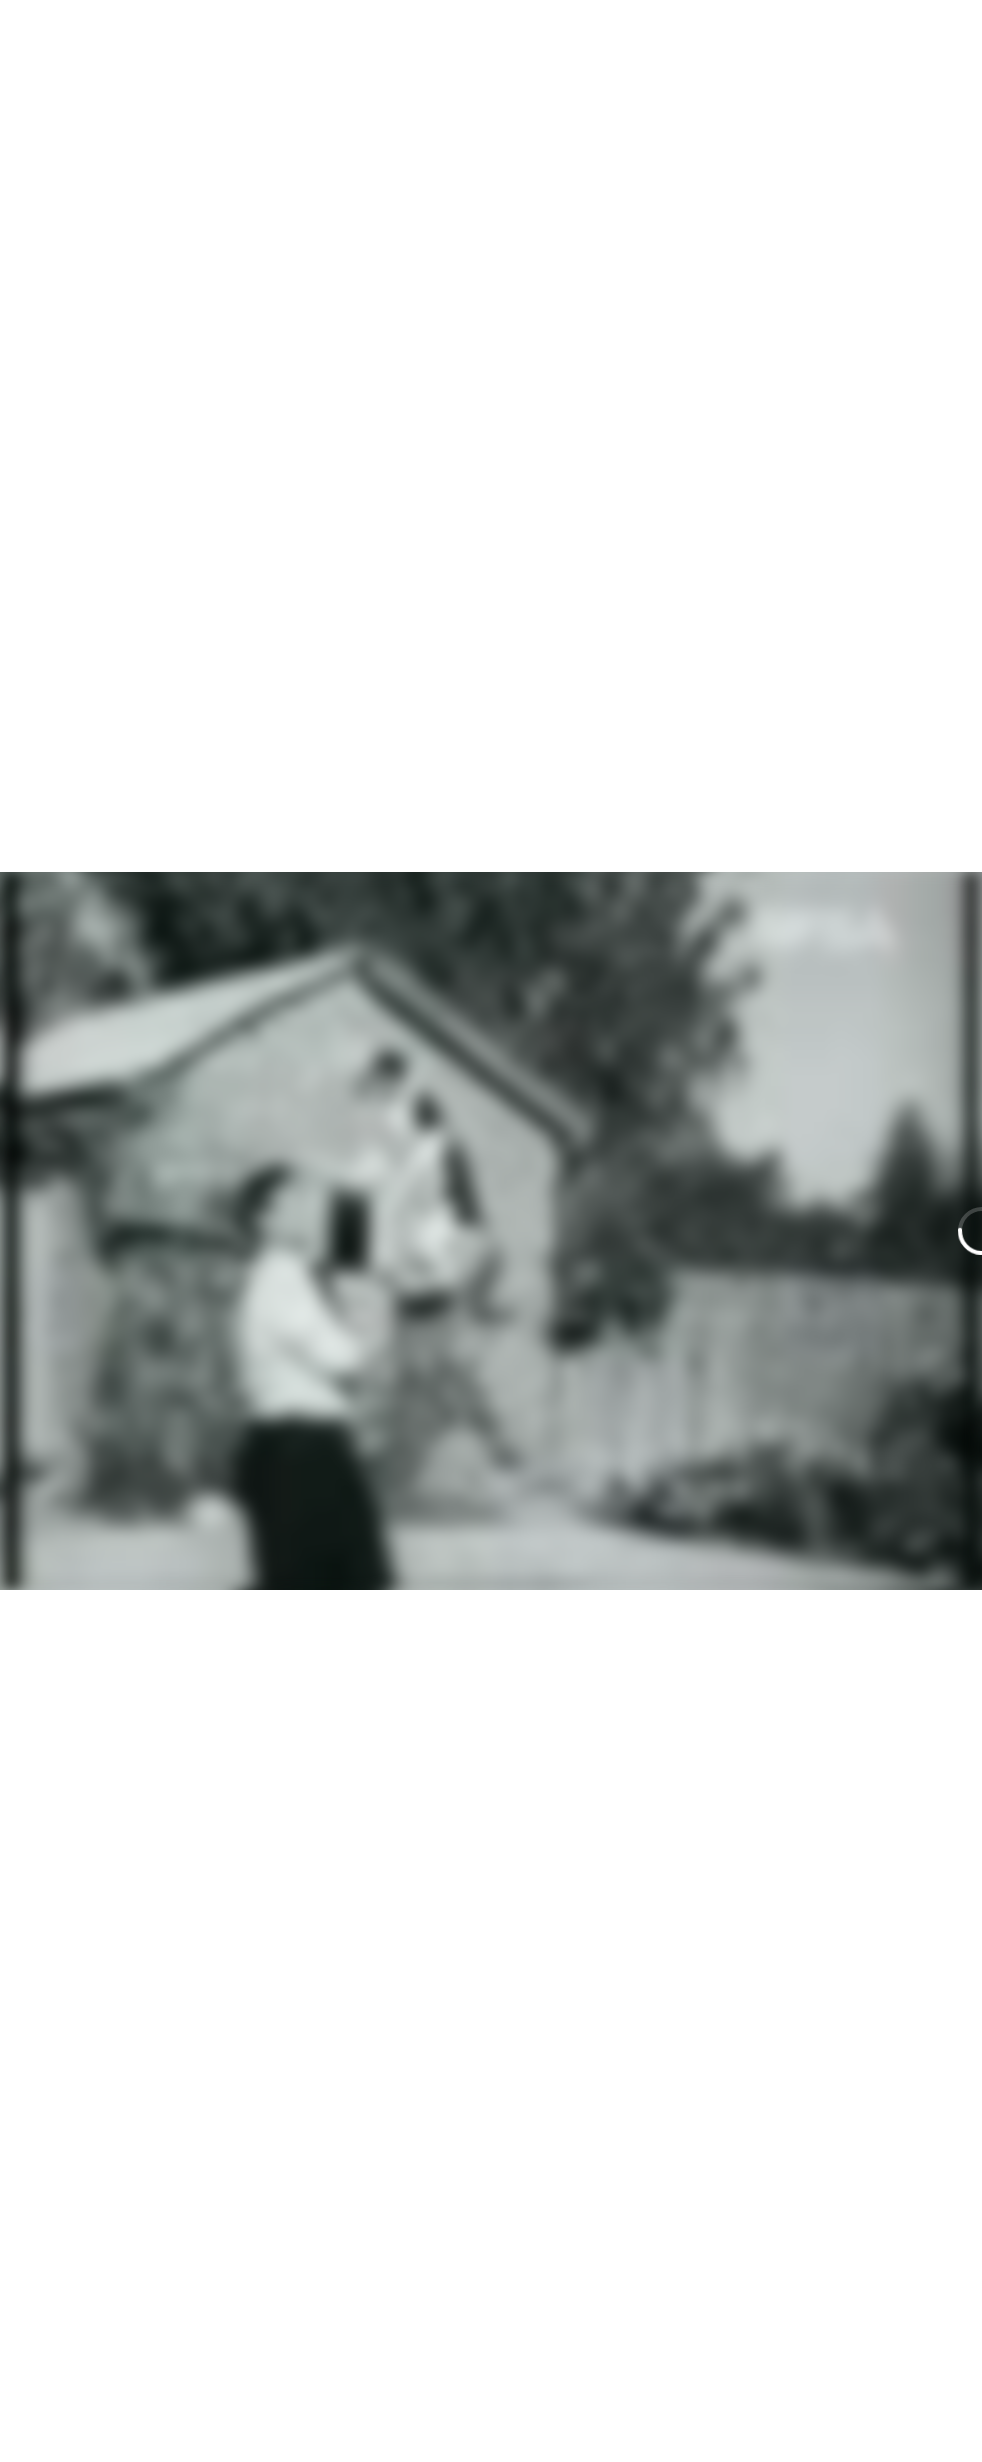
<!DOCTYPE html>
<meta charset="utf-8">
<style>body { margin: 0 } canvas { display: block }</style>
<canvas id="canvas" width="982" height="2462"></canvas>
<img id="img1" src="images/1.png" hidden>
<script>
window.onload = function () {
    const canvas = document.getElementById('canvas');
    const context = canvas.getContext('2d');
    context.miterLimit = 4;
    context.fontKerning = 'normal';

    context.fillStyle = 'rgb(255, 255, 255)';
    context.fillRect(0, 0, 982, 2462);
    context.drawImage(document.getElementById('img1'), 0, 872, 982, 718);
};
</script>
